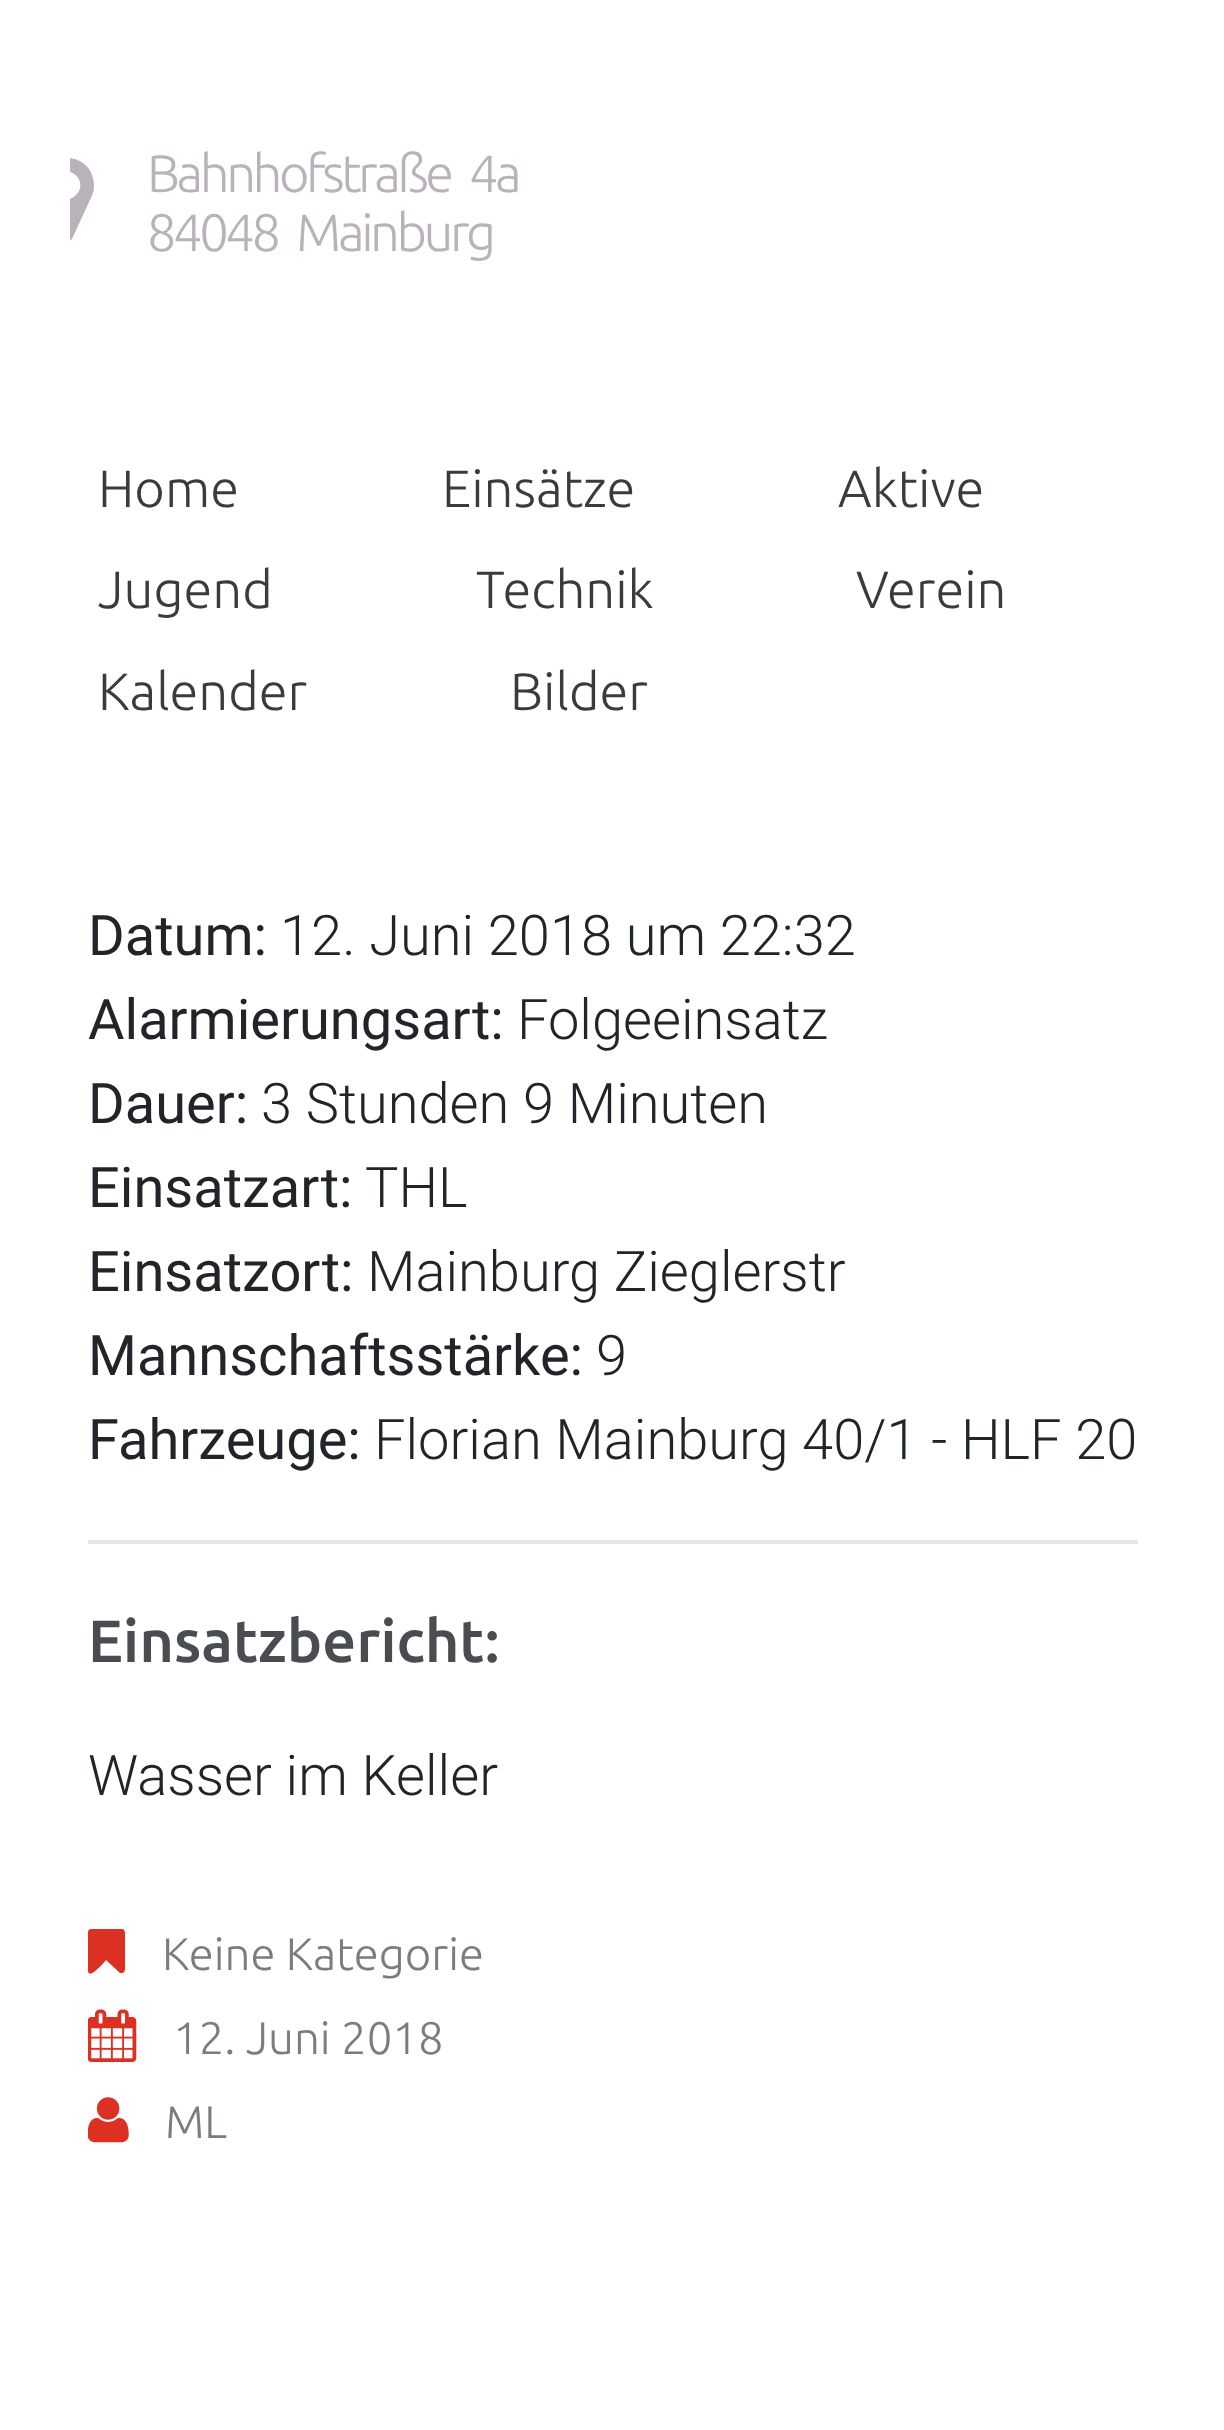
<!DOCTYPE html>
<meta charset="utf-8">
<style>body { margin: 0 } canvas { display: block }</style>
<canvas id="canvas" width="1224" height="2430"></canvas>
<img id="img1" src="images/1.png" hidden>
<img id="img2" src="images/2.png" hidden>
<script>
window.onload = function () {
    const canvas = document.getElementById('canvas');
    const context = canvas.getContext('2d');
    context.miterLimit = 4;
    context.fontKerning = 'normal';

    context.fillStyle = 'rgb(255, 255, 255)';
    context.fillRect(0, 0, 1224, 2430);
    context.save();
    context.beginPath();
    context.rect(70, 0, 1085, 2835);
    context.clip();
    context.fillStyle = 'rgb(186, 178, 187)';
    context.beginPath();
    context.moveTo(76, 195);
    context.bezierCurveTo(89, 182, 70, 163, 57, 176);
    context.bezierCurveTo(44, 189, 63, 208, 76, 195);
    context.closePath();
    context.moveTo(94, 186);
    context.bezierCurveTo(94, 192, 92, 196, 89, 202);
    context.lineTo(72, 239);
    context.bezierCurveTo(71, 240, 69, 241, 67, 241);
    context.bezierCurveTo(61, 242, 59, 235, 57, 231);
    context.lineTo(44, 202);
    context.bezierCurveTo(41, 197, 38, 192, 38, 186);
    context.bezierCurveTo(39, 148, 94, 149, 94, 186);
    context.closePath();
    context.fill();
    context.restore();
    context.fillStyle = 'rgb(230, 230, 230)';
    context.fillRect(88, 1540, 1050, 4);
    context.fillStyle = 'rgb(220, 48, 35)';
    context.beginPath();
    context.moveTo(122, 1929);
    context.bezierCurveTo(126, 1929, 125, 1936, 125, 1939);
    context.lineTo(125, 1964);
    context.bezierCurveTo(125, 1966, 126, 1973, 122, 1973);
    context.lineTo(120, 1973);
    context.lineTo(106, 1960);
    context.bezierCurveTo(100, 1967, 89, 1979, 88, 1971);
    context.lineTo(88, 1939);
    context.bezierCurveTo(88, 1929, 87, 1929, 96, 1929);
    context.closePath();
    context.fill();
    context.drawImage(document.getElementById('img1'), 88, 2009, 49, 53);
    context.drawImage(document.getElementById('img2'), 88, 2097, 41, 46);
    context.letterSpacing = '-3.5px';
    context.wordSpacing = '10px';
    context.font = '300 52.5px Ubuntu';
    context.fillStyle = 'rgb(186, 178, 187)';
    context.fillText('Bahnhofstraße 4a', 147, 192);
    context.fillText('84048 Mainburg', 147, 251);
    context.letterSpacing = '0px';
    context.wordSpacing = '0px';
    context.fillStyle = 'rgb(57, 60, 61)';
    context.fillText('Home', 98, 507);
    context.fillText('Einsätze', 442, 507);
    context.fillText('Aktive', 838, 507);
    context.fillText('Jugend', 98, 608);
    context.fillText('Technik', 476, 608);
    context.fillText('Verein', 856, 608);
    context.fillText('Kalender', 98, 710);
    context.fillText('Bilder', 510, 710);
    context.font = '56px Roboto';
    context.fillStyle = 'rgb(33, 37, 41)';
    context.fillText('Datum:', 88, 955);
    context.font = '300 56px Roboto';
    context.fillText('12. Juni 2018 um 22:32', 280, 955);
    context.font = '56px Roboto';
    context.fillText('Alarmierungsart:', 88, 1039);
    context.font = '300 56px Roboto';
    context.fillText('Folgeeinsatz', 517, 1039);
    context.font = '56px Roboto';
    context.fillText('Dauer:', 88, 1123);
    context.font = '300 56px Roboto';
    context.fillText('3 Stunden 9 Minuten', 261, 1123);
    context.font = '56px Roboto';
    context.fillText('Einsatzart:', 88, 1207);
    context.font = '300 56px Roboto';
    context.fillText('THL', 365, 1207);
    context.font = '56px Roboto';
    context.fillText('Einsatzort:', 88, 1291);
    context.font = '300 56px Roboto';
    context.fillText('Mainburg Zieglerstr', 367, 1291);
    context.font = '56px Roboto';
    context.fillText('Mannschaftsstärke:', 88, 1375);
    context.font = '300 56px Roboto';
    context.fillText('9', 596, 1375);
    context.font = '56px Roboto';
    context.fillText('Fahrzeuge:', 88, 1459);
    context.font = '300 56px Roboto';
    context.fillText('Florian Mainburg 40/1 - HLF 20', 374, 1459);
    context.font = '500 59.5px Ubuntu';
    context.fillStyle = 'rgb(73, 77, 82)';
    context.fillText('Einsatzbericht:', 88, 1662);
    context.font = '300 56px Roboto';
    context.fillStyle = 'rgb(33, 37, 41)';
    context.fillText('Wasser im Keller', 88, 1795);
    context.font = '300 45.5px Ubuntu';
    context.fillStyle = 'rgb(121, 124, 128)';
    context.fillText('Keine Kategorie', 162, 1970);
    context.fillText('12. Juni 2018', 173, 2054);
    context.fillText('ML', 165, 2138);
};
</script>
